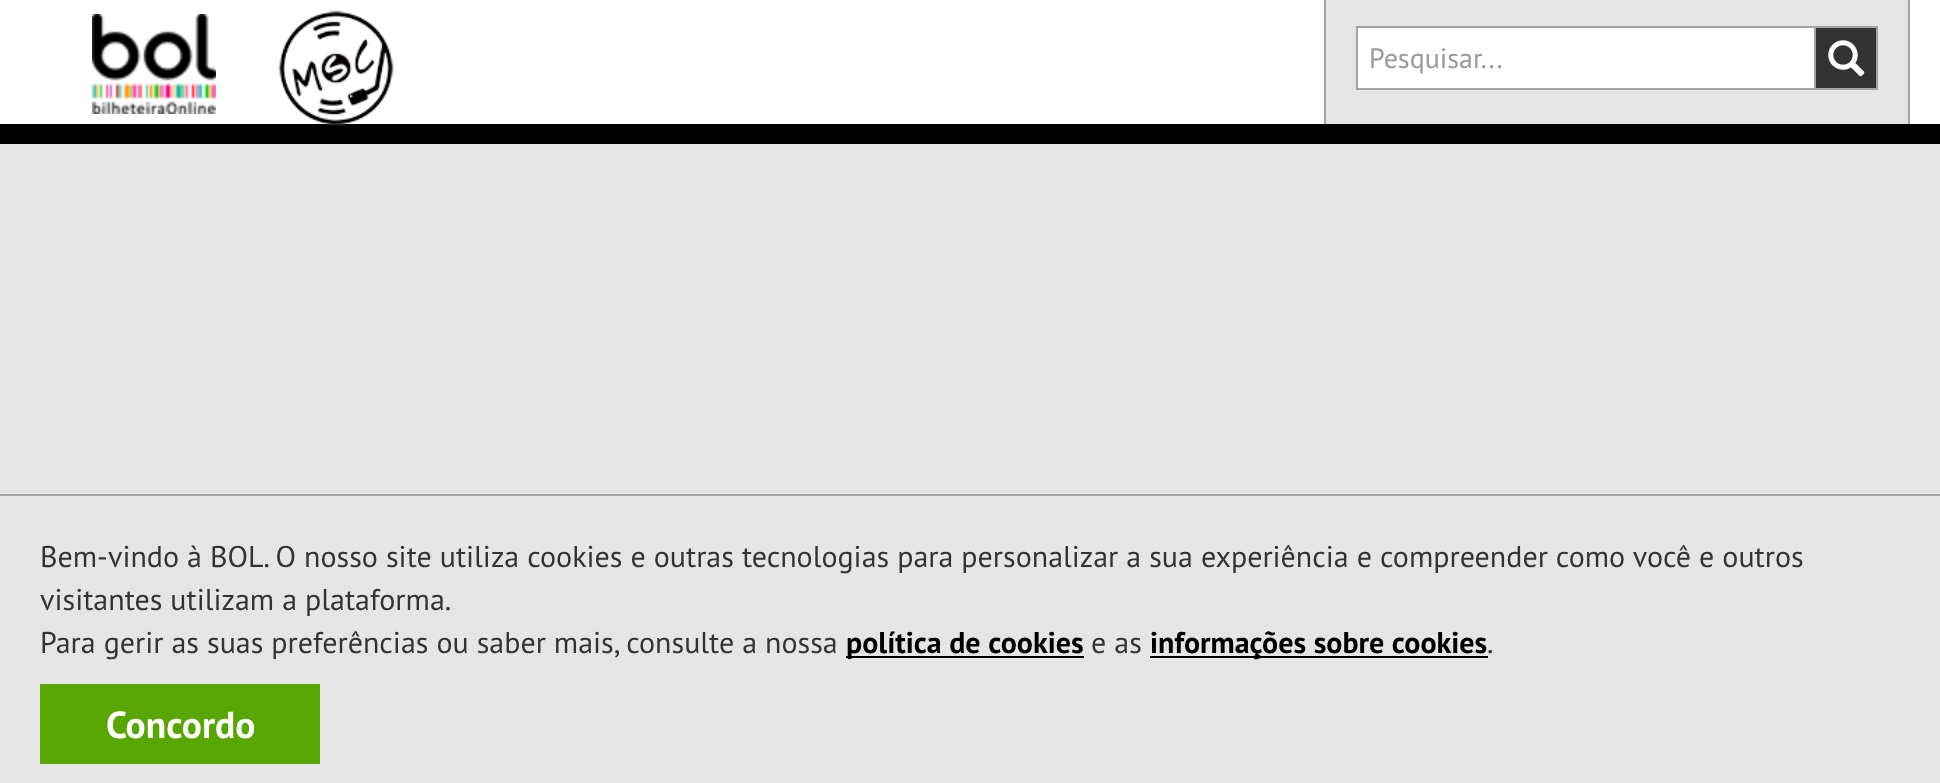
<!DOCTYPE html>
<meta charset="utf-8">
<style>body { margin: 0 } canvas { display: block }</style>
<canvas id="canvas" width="1940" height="783"></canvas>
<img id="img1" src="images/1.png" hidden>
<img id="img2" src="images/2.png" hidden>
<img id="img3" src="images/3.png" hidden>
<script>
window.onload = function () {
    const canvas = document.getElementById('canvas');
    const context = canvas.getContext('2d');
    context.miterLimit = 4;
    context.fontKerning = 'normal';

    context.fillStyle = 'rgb(229, 229, 229)';
    context.fillRect(0, 0, 1940, 783);
    context.fillStyle = 'rgb(255, 255, 255)';
    context.fillRect(0, 0, 1940, 124);
    context.fillStyle = 'rgb(0, 0, 0)';
    context.fillRect(0, 124, 1940, 20);
    context.drawImage(document.getElementById('img1'), 92, 14, 124, 100);
    context.drawImage(document.getElementById('img2'), 278, 10, 116, 116);
    context.fillStyle = 'rgb(229, 229, 229)';
    context.fillRect(1326, 0, 582, 124);
    context.fillStyle = 'rgb(163, 163, 163)';
    context.fillRect(1908, 0, 2, 124);
    context.fillRect(1324, 0, 2, 124);
    context.fillStyle = 'rgb(255, 255, 255)';
    context.beginPath();
    context.rect(1357, 27, 458, 62);
    context.fill();
    context.strokeStyle = 'rgb(163, 163, 163)';
    context.lineWidth = 2;
    context.stroke();
    context.fillStyle = 'rgb(163, 163, 163)';
    context.fillRect(1816, 26, 62, 2);
    context.fillRect(1876, 26, 2, 64);
    context.fillRect(1816, 88, 62, 2);
    context.fillStyle = 'rgb(51, 51, 51)';
    context.fillRect(1816, 28, 60, 60);
    context.drawImage(document.getElementById('img3'), 1828, 40, 37, 37);
    context.fillStyle = 'rgb(163, 163, 163)';
    context.fillRect(0, 494, 1940, 2);
    context.fillStyle = 'rgb(0, 0, 0)';
    context.fillRect(846, 656, 238, 2);
    context.fillRect(1150, 656, 338, 2);
    context.fillStyle = 'rgb(88, 166, 0)';
    context.fillRect(40, 684, 280, 80);
    context.font = '28px PT Sans';
    context.fillStyle = 'rgb(153, 153, 153)';
    context.fillText('Pesquisar...', 1369, 68);
    context.font = '30px PT Sans';
    context.fillStyle = 'rgb(51, 51, 51)';
    context.fillText('Bem-vindo à BOL. O nosso site utiliza cookies e outras tecnologias para personalizar a sua experiência e compreender como você e outros', 40, 567);
    context.fillText('visitantes utilizam a plataforma.', 40, 610);
    context.fillText('Para gerir as suas preferências ou saber mais, consulte a nossa', 40, 653);
    context.font = 'bold 30px PT Sans';
    context.fillStyle = 'rgb(0, 0, 0)';
    context.fillText('política de cookies', 846, 653);
    context.font = '30px PT Sans';
    context.fillStyle = 'rgb(51, 51, 51)';
    context.fillText('e as', 1091, 653);
    context.font = 'bold 30px PT Sans';
    context.fillStyle = 'rgb(0, 0, 0)';
    context.fillText('informações sobre cookies', 1150, 653);
    context.font = '30px PT Sans';
    context.fillStyle = 'rgb(51, 51, 51)';
    context.fillText('.', 1487, 653);
    context.font = 'bold 37.5px PT Sans';
    context.fillStyle = 'rgb(255, 255, 255)';
    context.fillText('Concordo', 106, 738);
};
</script>
